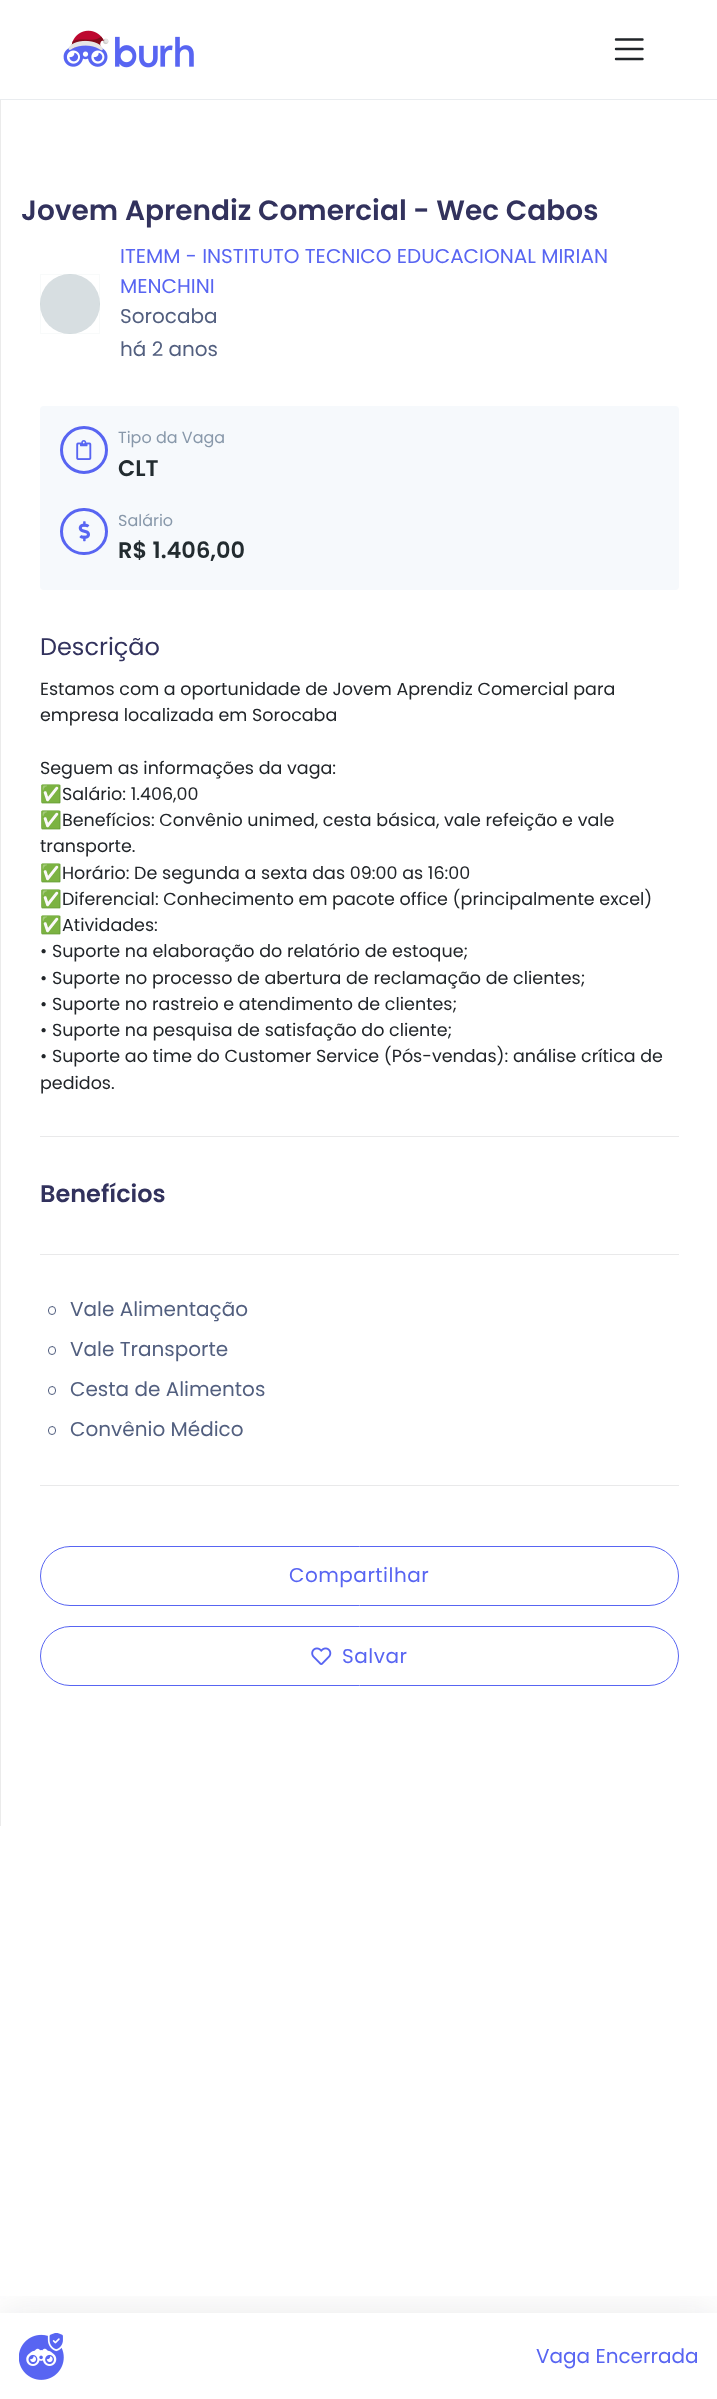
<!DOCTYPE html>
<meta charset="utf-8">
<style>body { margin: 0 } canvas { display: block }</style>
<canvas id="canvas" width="717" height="2399"></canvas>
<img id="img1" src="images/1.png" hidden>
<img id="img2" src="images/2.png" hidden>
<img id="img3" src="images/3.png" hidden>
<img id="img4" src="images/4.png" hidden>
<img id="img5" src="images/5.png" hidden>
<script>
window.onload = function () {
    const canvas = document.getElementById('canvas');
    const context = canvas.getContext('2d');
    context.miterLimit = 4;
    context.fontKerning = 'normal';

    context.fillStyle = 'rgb(255, 255, 255)';
    context.fillRect(0, 0, 717, 2399);
    context.fillStyle = 'rgb(233, 236, 239)';
    context.fillRect(0, 99, 717, 1);
    context.drawImage(document.getElementById('img1'), 63, 30, 131, 38);
    context.beginPath();
    context.moveTo(616, 39.5);
    context.lineTo(642.5, 39.5);
    context.moveTo(616, 49);
    context.lineTo(642.5, 49);
    context.moveTo(616, 59);
    context.lineTo(642.5, 59);
    context.strokeStyle = 'rgb(33, 37, 41)';
    context.lineWidth = 2.4;
    context.lineCap = 'round';
    context.stroke();
    context.fillStyle = 'rgb(235, 235, 235)';
    context.fillRect(0, 100, 1, 1726);
    context.fillStyle = 'rgb(215, 222, 225)';
    context.beginPath();
    context.arc(70, 304, 30, 0, 2 * Math.PI);
    context.fill();
    context.strokeStyle = 'rgba(126, 150, 161, 0.05)';
    context.lineWidth = 1;
    context.strokeRect(40.5, 274.5, 59, 59);
    context.fillStyle = 'rgb(246, 249, 252)';
    context.beginPath();
    context.roundRect(40, 406, 639, 184, 4);
    context.fill();
    context.beginPath();
    context.arc(84, 450, 22.5, 0, 2 * Math.PI);
    context.strokeStyle = 'rgb(88, 101, 242)';
    context.lineWidth = 3;
    context.stroke();
    context.drawImage(document.getElementById('img2'), 76, 440, 16, 20);
    context.beginPath();
    context.roundRect(61.5, 509.5, 45, 44, 22);
    context.stroke();
    context.drawImage(document.getElementById('img3'), 78, 521, 12, 21);
    context.fillStyle = 'rgb(233, 233, 234)';
    context.fillRect(40, 1136, 639, 1);
    context.fillRect(40, 1254, 639, 1);
    context.beginPath();
    context.roundRect(48.5, 1306.5, 7, 8, 3.5);
    context.strokeStyle = 'rgb(82, 95, 127)';
    context.lineWidth = 1;
    context.stroke();
    context.beginPath();
    context.roundRect(48.5, 1346.5, 7, 8, 3.5);
    context.stroke();
    context.beginPath();
    context.roundRect(48.5, 1386.5, 7, 8, 3.5);
    context.stroke();
    context.beginPath();
    context.roundRect(48.5, 1426.5, 7, 8, 3.5);
    context.stroke();
    context.fillRect(40, 1485, 639, 1);
    context.beginPath();
    context.roundRect(40.5, 1546.5, 638, 59, 29.5);
    context.strokeStyle = 'rgb(88, 101, 242)';
    context.stroke();
    context.beginPath();
    context.roundRect(40.5, 1626.5, 638, 59, 29.5);
    context.stroke();
    context.drawImage(document.getElementById('img4'), 311, 1647, 21, 18);
    context.save();
    context.beginPath();
    context.rect(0, 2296, 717, 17);
    context.clip();
    context.fillStyle = 'rgba(35, 44, 48, 0.1)';
    context.filter = 'blur(20px)';
    context.beginPath();
    context.rect(0, 2313, 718, 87);
    context.fill();
    context.filter = 'none';
    context.restore();
    context.drawImage(document.getElementById('img5'), 19, 2333, 45, 47);
    context.font = '600 28px Poppins';
    context.fillStyle = 'rgb(50, 50, 93)';
    context.fillText('Jovem Aprendiz Comercial - Wec Cabos', 21, 220);
    context.font = '20px Poppins';
    context.fillStyle = 'rgb(88, 101, 242)';
    context.fillText('ITEMM - INSTITUTO TECNICO EDUCACIONAL MIRIAN', 120, 263);
    context.fillText('MENCHINI', 120, 293);
    context.fillStyle = 'rgb(82, 95, 127)';
    context.fillText('Sorocaba', 120, 323);
    context.fillText('há 2 anos', 120, 356);
    context.font = '16px Poppins';
    context.fillStyle = 'rgb(136, 152, 170)';
    context.fillText('Tipo da Vaga', 118, 443);
    context.font = '600 22.5px Poppins';
    context.fillStyle = 'rgb(35, 44, 48)';
    context.fillText('CLT', 118, 476);
    context.font = '16px Poppins';
    context.fillStyle = 'rgb(136, 152, 170)';
    context.fillText('Salário', 118, 526);
    context.font = '600 22.5px Poppins';
    context.fillStyle = 'rgb(35, 44, 48)';
    context.fillText('R$ 1.406,00', 118, 558);
    context.font = '24px Poppins';
    context.fillStyle = 'rgb(50, 50, 93)';
    context.fillText('Descrição', 40, 655);
    context.font = '17.5px Poppins';
    context.fillStyle = 'rgb(33, 37, 41)';
    context.fillText('Estamos com a oportunidade de Jovem Aprendiz Comercial para', 40, 695);
    context.fillText('empresa localizada em Sorocaba', 40, 721);
    context.fillText('Seguem as informações da vaga:', 40, 774);
    context.font = '17.5px Noto Color Emoji';
    context.fillText('✅', 40, 800);
    context.font = '17.5px Poppins';
    context.fillText('Salário: 1.406,00', 62, 800);
    context.font = '17.5px Noto Color Emoji';
    context.fillText('✅', 40, 826);
    context.font = '17.5px Poppins';
    context.fillText('Benefícios: Convênio unimed, cesta básica, vale refeição e vale', 62, 826);
    context.fillText('transporte.', 40, 852);
    context.font = '17.5px Noto Color Emoji';
    context.fillText('✅', 40, 879);
    context.font = '17.5px Poppins';
    context.fillText('Horário: De segunda a sexta das 09:00 as 16:00', 62, 879);
    context.font = '17.5px Noto Color Emoji';
    context.fillText('✅', 40, 905);
    context.font = '17.5px Poppins';
    context.fillText('Diferencial: Conhecimento em pacote office (principalmente excel)', 62, 905);
    context.font = '17.5px Noto Color Emoji';
    context.fillText('✅', 40, 931);
    context.font = '17.5px Poppins';
    context.fillText('Atividades:', 62, 931);
    context.fillText('• Suporte na elaboração do relatório de estoque;', 40, 957);
    context.fillText('• Suporte no processo de abertura de reclamação de clientes;', 40, 984);
    context.fillText('• Suporte no rastreio e atendimento de clientes;', 40, 1010);
    context.fillText('• Suporte na pesquisa de satisfação do cliente;', 40, 1036);
    context.fillText('• Suporte ao time do Customer Service (Pós-vendas): análise crítica de', 40, 1062);
    context.fillText('pedidos.', 40, 1089);
    context.font = '600 24px Poppins';
    context.fillStyle = 'rgb(50, 50, 93)';
    context.fillText('Benefícios', 40, 1202);
    context.font = '20px Poppins';
    context.fillStyle = 'rgb(82, 95, 127)';
    context.fillText('Vale Alimentação', 70, 1316);
    context.fillText('Vale Transporte', 70, 1356);
    context.fillText('Cesta de Alimentos', 70, 1396);
    context.fillText('Convênio Médico', 70, 1436);
    context.letterSpacing = '0.5px';
    context.fillStyle = 'rgb(88, 101, 242)';
    context.fillText('Compartilhar', 289, 1582);
    context.fillText('Salvar', 342, 1663);
    context.letterSpacing = '0px';
    context.fillText('Vaga Encerrada', 536, 2363);
};
</script>
